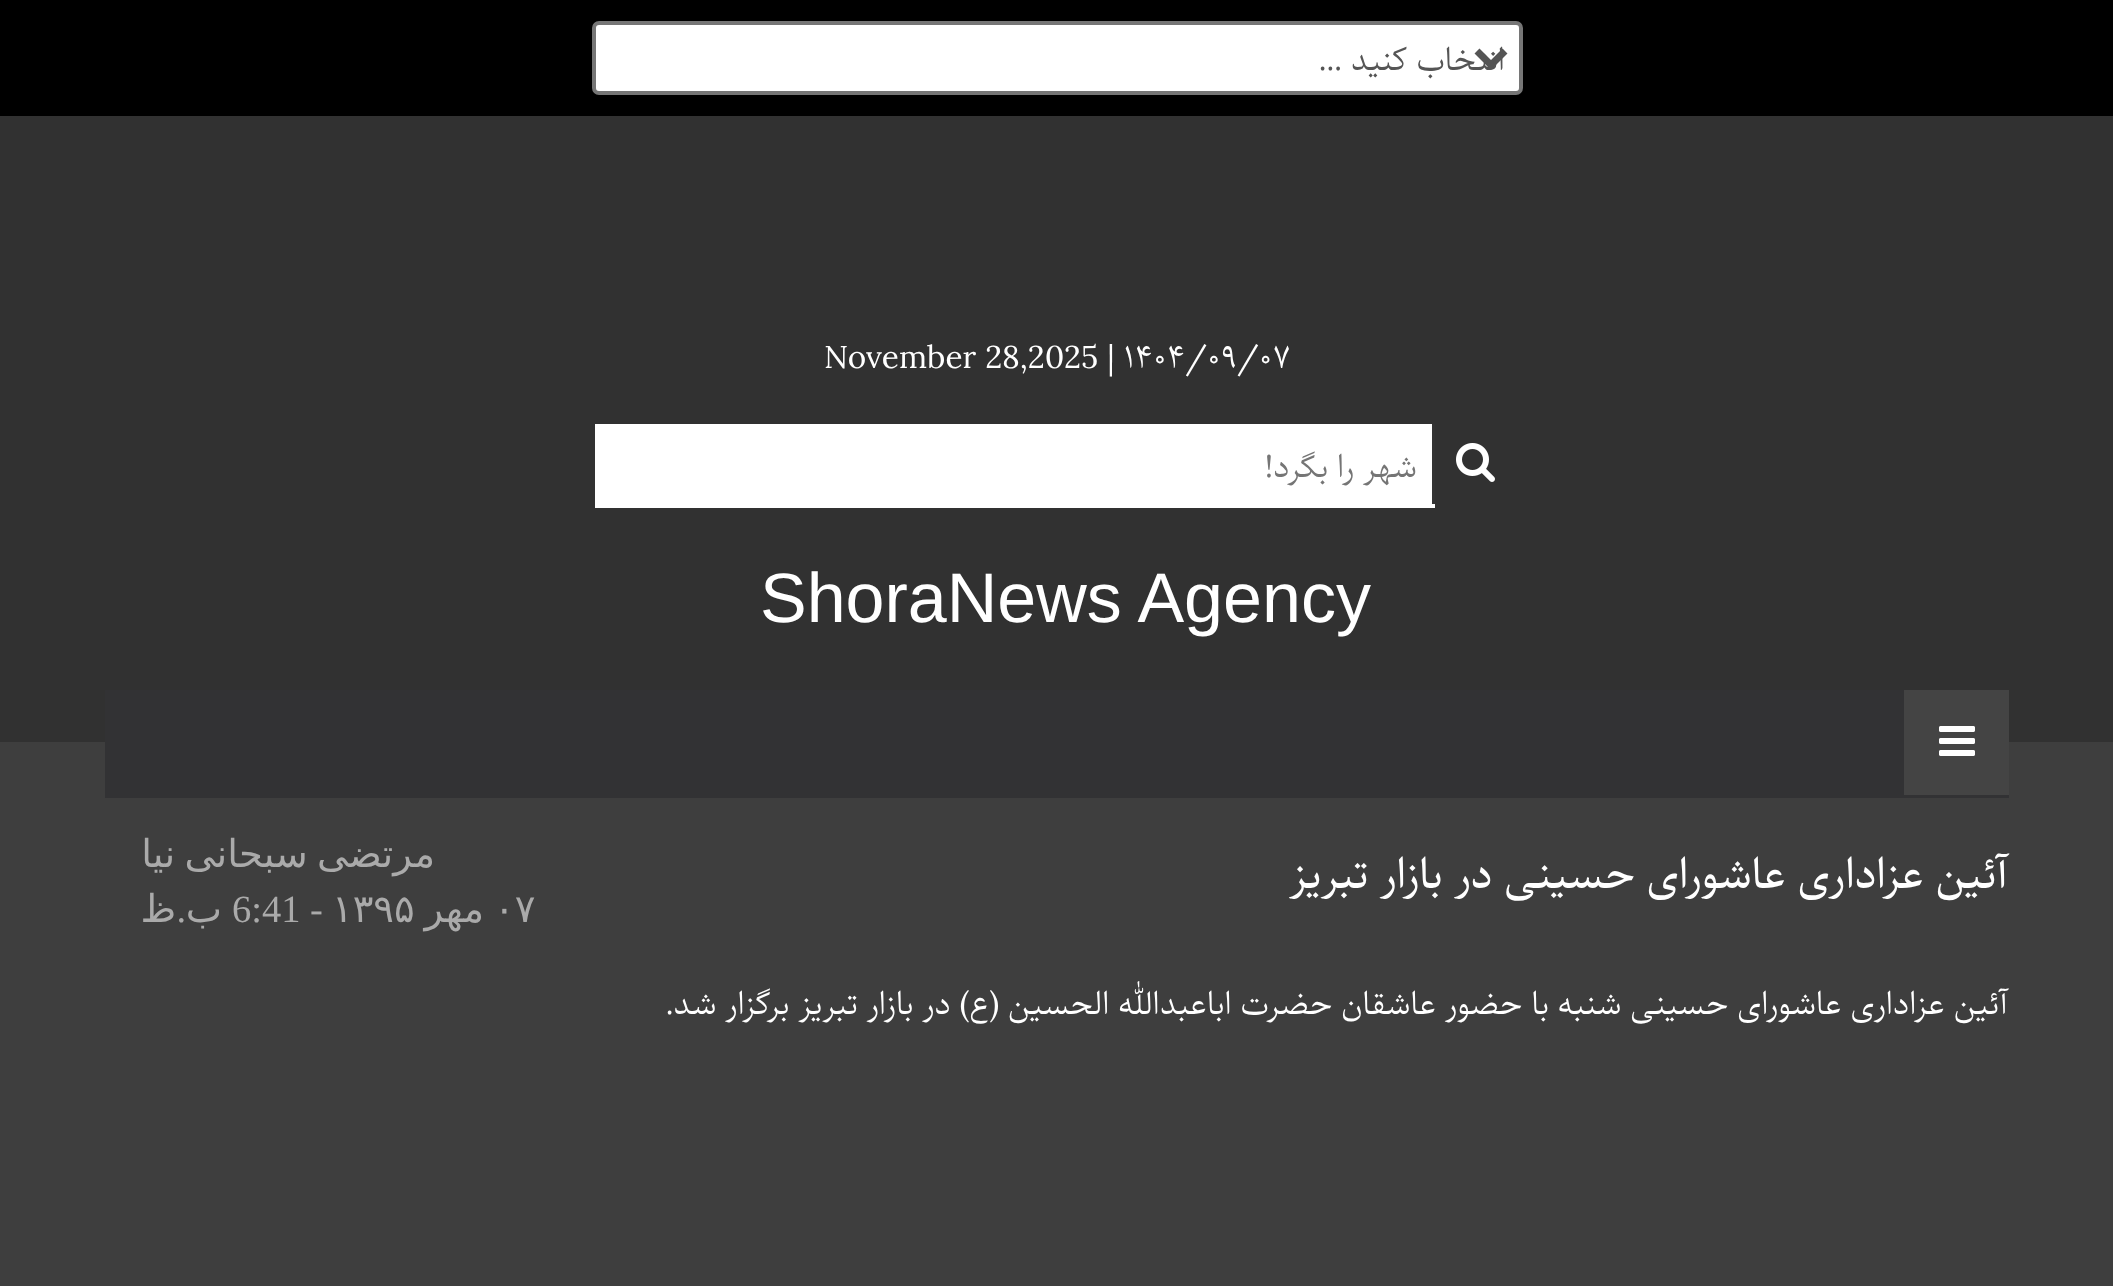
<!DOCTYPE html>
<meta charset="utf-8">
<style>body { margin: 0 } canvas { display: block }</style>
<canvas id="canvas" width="2113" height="1286"></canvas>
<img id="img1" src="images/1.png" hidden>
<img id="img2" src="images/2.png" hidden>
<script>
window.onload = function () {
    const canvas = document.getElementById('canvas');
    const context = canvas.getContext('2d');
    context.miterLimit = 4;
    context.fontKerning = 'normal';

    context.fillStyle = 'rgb(62, 62, 62)';
    context.fillRect(0, 0, 2113, 1286);
    context.fillStyle = 'rgb(49, 49, 49)';
    context.fillRect(0, 116, 2113, 626);
    context.fillStyle = 'rgb(0, 0, 0)';
    context.fillRect(0, 0, 2113, 116);
    context.fillStyle = 'rgb(255, 255, 255)';
    context.beginPath();
    context.roundRect(594, 23, 927, 70, 5);
    context.fill();
    context.strokeStyle = 'rgb(118, 118, 118)';
    context.lineWidth = 4;
    context.stroke();
    context.beginPath();
    context.moveTo(1477, 51);
    context.lineTo(1491, 65);
    context.lineTo(1505, 51);
    context.strokeStyle = 'rgb(85, 85, 85)';
    context.lineWidth = 7;
    context.stroke();
    context.fillRect(595, 424, 840, 84);
    context.fillStyle = 'rgb(51, 51, 51)';
    context.fillRect(1432, 424, 3, 80);
    context.drawImage(document.getElementById('img1'), 1456, 443, 39, 39);
    context.fillStyle = 'rgb(50, 50, 52)';
    context.fillRect(105, 795, 1904, 3);
    context.fillRect(105, 690, 1799, 105);
    context.fillStyle = 'rgb(68, 68, 68)';
    context.fillRect(1904, 690, 105, 105);
    context.drawImage(document.getElementById('img2'), 1939, 726, 36, 30);
    context.direction = 'rtl';
    context.font = '42px Parastoo';
    context.fillStyle = 'rgb(85, 85, 85)';
    context.fillText('انتخاب کنید ...', 1505, 70);
    context.direction = 'ltr';
    context.fillStyle = 'rgb(255, 255, 255)';
    context.fillText('November 28,2025 | ۱۴۰۴/۰۹/۰۷', 824, 368);
    context.direction = 'rtl';
    context.fillStyle = 'rgb(117, 117, 117)';
    context.fillText('شهر را بگرد!', 1417, 477);
    context.direction = 'ltr';
    context.font = '70px Liberation Sans';
    context.fillStyle = 'rgb(255, 255, 255)';
    context.fillText('ShoraNews Agency', 760, 622);
    context.direction = 'rtl';
    context.font = '500 56px Parastoo';
    context.fillText('آئین عزاداری عاشورای حسینی در بازار تبریز', 2008, 888);
    context.wordSpacing = '-3px';
    context.font = '38.5px DejaVu Sans';
    context.fillStyle = 'rgb(170, 170, 170)';
    context.fillText('مرتضی سبحانی نیا', 435, 867);
    context.wordSpacing = '0px';
    context.direction = 'ltr';
    context.fillText('۰۷', 494, 922);
    context.direction = 'rtl';
    context.fillText('مهر', 484, 922);
    context.direction = 'ltr';
    context.fillText('۱۳۹۵', 332, 922);
    context.font = '38.5px Liberation Serif';
    context.fillText('6:41 -', 232, 922);
    context.direction = 'rtl';
    context.font = '38.5px DejaVu Sans';
    context.fillText('ب', 222, 922);
    context.font = '38.5px Liberation Serif';
    context.fillText('.', 186, 922);
    context.font = '38.5px DejaVu Sans';
    context.fillText('ظ', 176, 922);
    context.font = '42px Parastoo';
    context.fillStyle = 'rgb(255, 255, 255)';
    context.fillText('آئین عزاداری عاشورای حسینی شنبه با حضور عاشقان حضرت اباعبدالله الحسین (ع) در بازار تبریز برگزار شد.', 2008, 1014);
};
</script>
